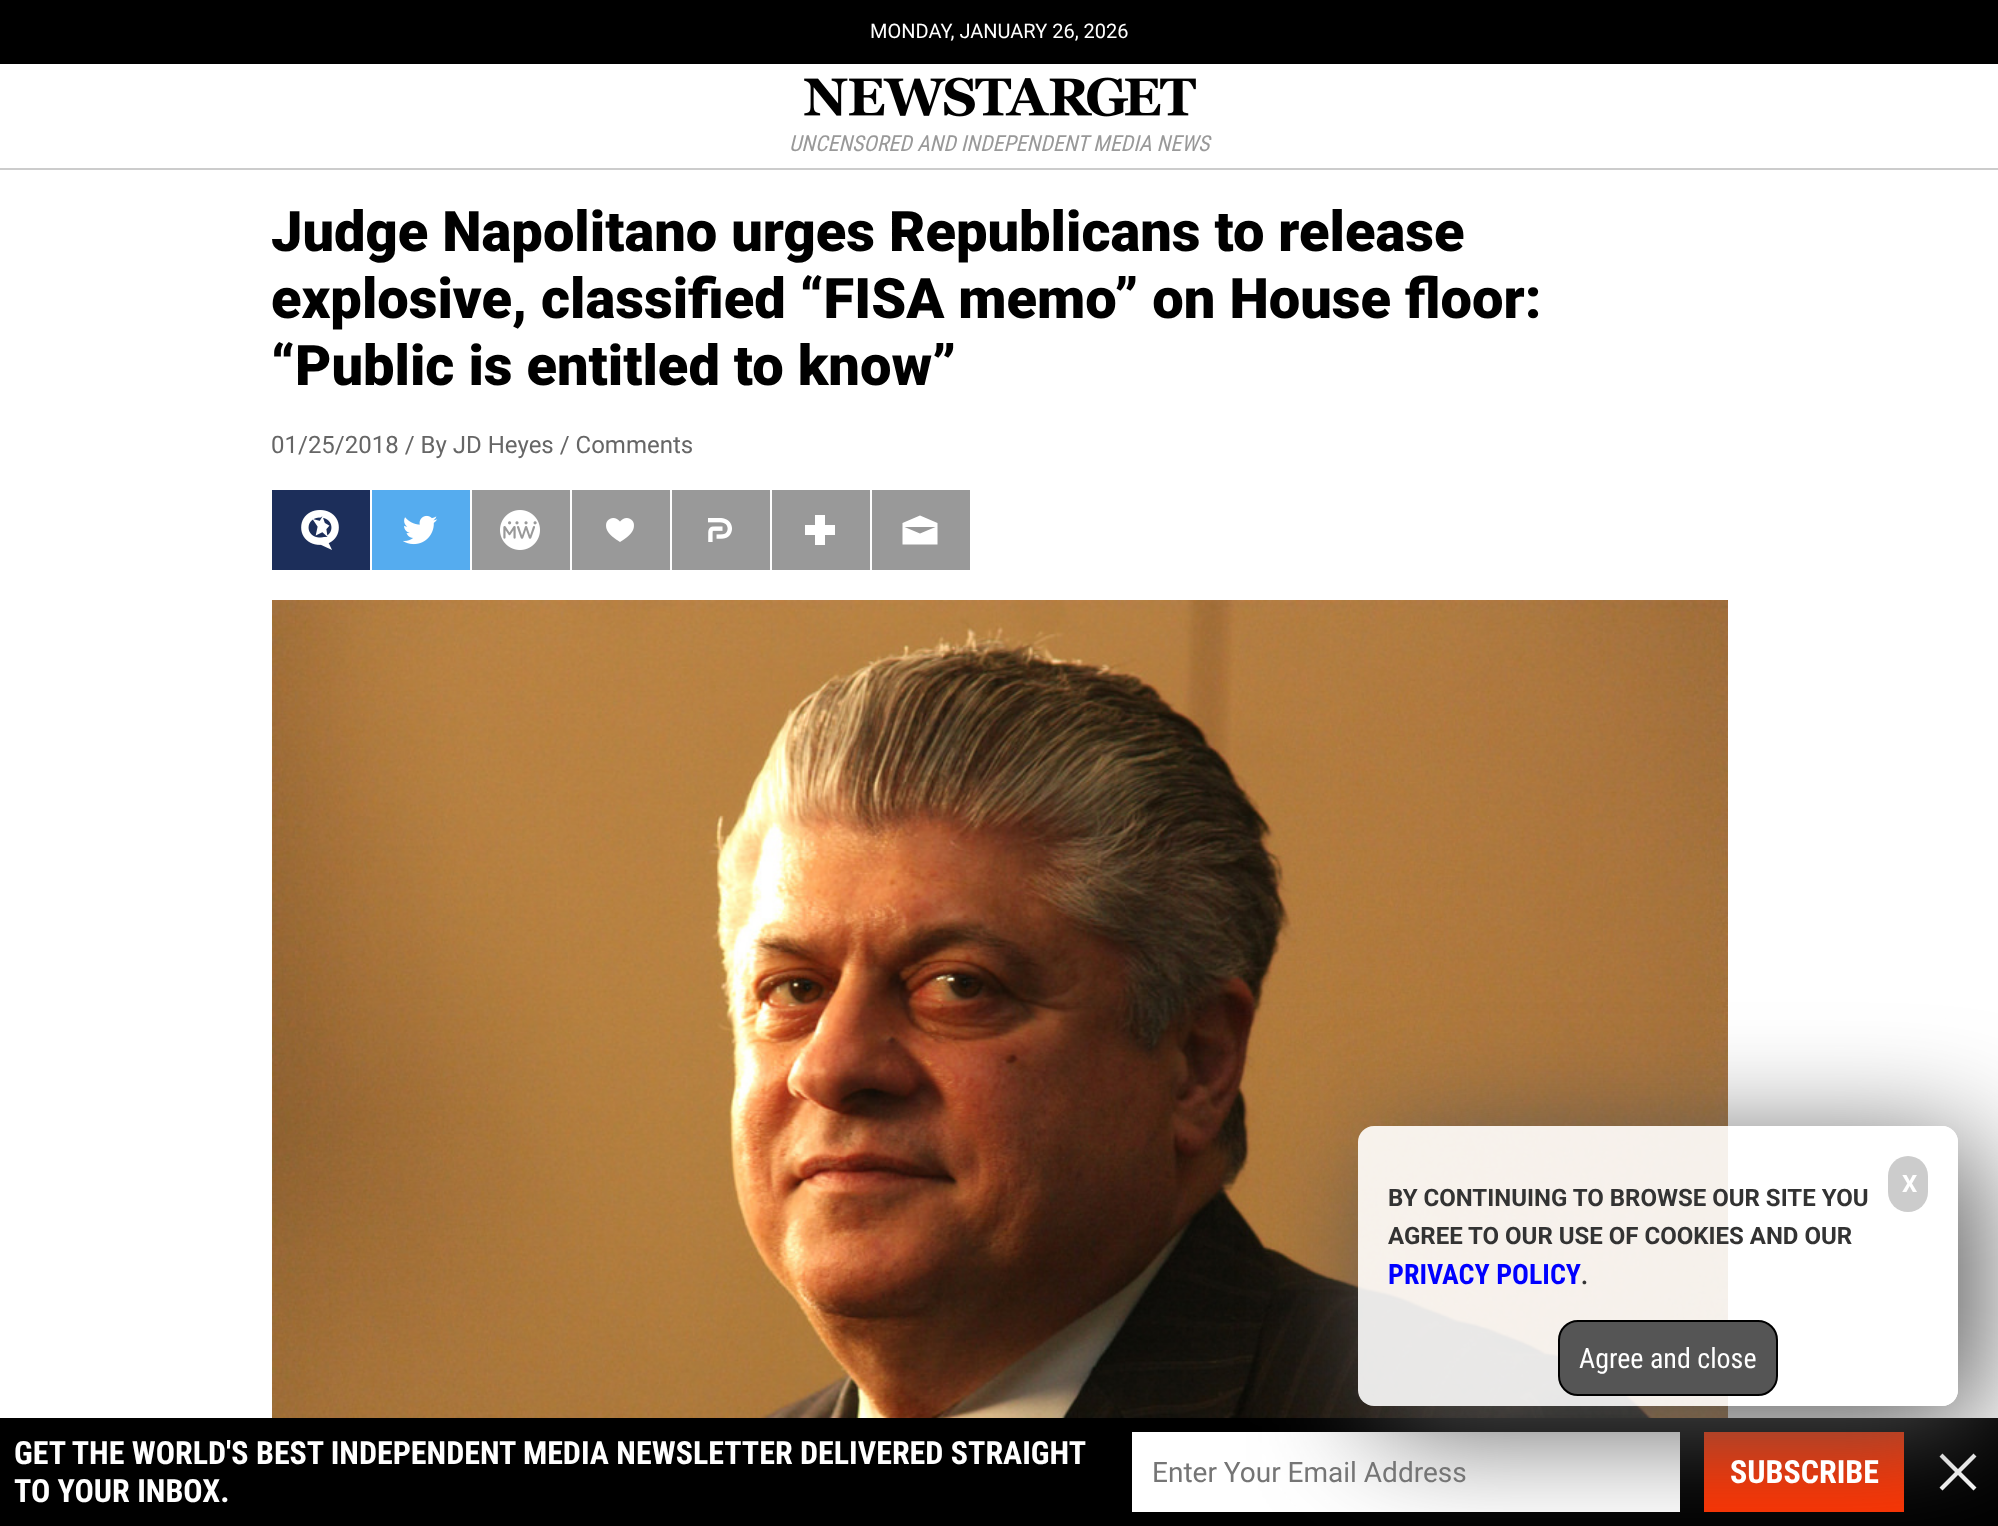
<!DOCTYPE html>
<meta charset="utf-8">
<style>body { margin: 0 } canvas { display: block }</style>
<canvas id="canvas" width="1998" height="1526"></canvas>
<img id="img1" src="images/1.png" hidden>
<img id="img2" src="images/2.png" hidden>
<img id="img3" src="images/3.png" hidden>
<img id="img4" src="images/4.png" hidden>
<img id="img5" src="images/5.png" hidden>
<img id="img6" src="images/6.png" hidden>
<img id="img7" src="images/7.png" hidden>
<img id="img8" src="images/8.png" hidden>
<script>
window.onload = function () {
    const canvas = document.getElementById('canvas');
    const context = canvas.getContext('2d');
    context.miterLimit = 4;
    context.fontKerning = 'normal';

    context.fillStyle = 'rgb(255, 255, 255)';
    context.fillRect(0, 0, 1998, 1526);
    context.fillStyle = 'rgb(0, 0, 0)';
    context.fillRect(0, 0, 1998, 64);
    context.fillStyle = 'rgb(204, 204, 204)';
    context.fillRect(0, 168, 1998, 2);
    context.drawImage(document.getElementById('img1'), 804, 77, 392, 40);
    context.fillStyle = 'rgb(28, 46, 90)';
    context.fillRect(272, 490, 98, 80);
    context.drawImage(document.getElementById('img2'), 301, 510, 38, 40);
    context.fillStyle = 'rgb(85, 172, 239)';
    context.fillRect(372, 490, 98, 80);
    context.drawImage(document.getElementById('img3'), 403, 515, 35, 30);
    context.fillStyle = 'rgb(153, 153, 153)';
    context.fillRect(472, 490, 98, 80);
    context.drawImage(document.getElementById('img4'), 500, 510, 40, 40);
    context.fillRect(572, 490, 98, 80);
    context.drawImage(document.getElementById('img5'), 606, 518, 28, 24);
    context.fillRect(672, 490, 98, 80);
    context.drawImage(document.getElementById('img6'), 708, 518, 24, 24);
    context.fillRect(772, 490, 98, 80);
    context.drawImage(document.getElementById('img7'), 805, 515, 30, 30);
    context.fillRect(872, 490, 98, 80);
    context.fillStyle = 'rgb(255, 255, 255)';
    context.beginPath();
    context.moveTo(920, 515.5);
    context.lineTo(902.5, 523);
    context.lineTo(902.5, 544.5);
    context.lineTo(937.5, 544.5);
    context.lineTo(937.5, 523);
    context.closePath();
    context.moveTo(920, 533.5);
    context.lineTo(904.5, 527);
    context.lineTo(935.5, 527);
    context.closePath();
    context.fill();
    context.drawImage(document.getElementById('img8'), 272, 600, 1456, 818);
    context.fillStyle = 'rgb(0, 0, 0)';
    context.fillRect(0, 1418, 1998, 108);
    context.fillStyle = 'rgb(255, 255, 255)';
    context.fillRect(1132, 1432, 548, 80);
    context.fillStyle = 'rgb(255, 51, 0)';
    context.fillRect(1704, 1432, 200, 80);
    context.fillStyle = 'rgb(255, 255, 255)';
    context.beginPath();
    context.moveTo(1976.5, 1456.5);
    context.lineTo(1973.5, 1453.5);
    context.lineTo(1958, 1469);
    context.lineTo(1942.5, 1453.5);
    context.lineTo(1939.5, 1456.5);
    context.lineTo(1955, 1472);
    context.lineTo(1939.5, 1487.5);
    context.lineTo(1942.5, 1490.5);
    context.lineTo(1958, 1475);
    context.lineTo(1973.5, 1490.5);
    context.lineTo(1976.5, 1487.5);
    context.lineTo(1961, 1472);
    context.closePath();
    context.fill();
    context.save();
    context.beginPath();
    context.moveTo(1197, 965);
    context.lineTo(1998, 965);
    context.lineTo(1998, 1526);
    context.lineTo(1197, 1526);
    context.closePath();
    context.moveTo(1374, 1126);
    context.lineTo(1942, 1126);
    context.bezierCurveTo(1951, 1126, 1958, 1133, 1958, 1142);
    context.lineTo(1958, 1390);
    context.bezierCurveTo(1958, 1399, 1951, 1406, 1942, 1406);
    context.lineTo(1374, 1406);
    context.bezierCurveTo(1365, 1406, 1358, 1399, 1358, 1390);
    context.lineTo(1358, 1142);
    context.bezierCurveTo(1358, 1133, 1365, 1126, 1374, 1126);
    context.closePath();
    context.clip('evenodd');
    context.fillStyle = 'rgb(85, 85, 85)';
    context.filter = 'blur(60px)';
    context.beginPath();
    context.roundRect(1378, 1146, 600, 280, 16);
    context.fill();
    context.filter = 'none';
    context.restore();
    context.fillStyle = 'rgba(255, 255, 255, 0.9)';
    context.beginPath();
    context.roundRect(1358, 1126, 600, 280, 16);
    context.fill();
    context.fillStyle = 'rgb(204, 204, 204)';
    context.beginPath();
    context.roundRect(1888, 1156, 40, 56, 20);
    context.fill();
    context.fillStyle = 'rgb(85, 85, 85)';
    context.beginPath();
    context.roundRect(1559, 1321, 218, 74, 19);
    context.fill();
    context.strokeStyle = 'rgb(0, 0, 0)';
    context.lineWidth = 2;
    context.stroke();
    context.font = '20px Roboto';
    context.fillStyle = 'rgb(255, 255, 255)';
    context.fillText('MONDAY, JANUARY 26, 2026', 870, 38);
    context.font = 'italic 22px Roboto Condensed';
    context.fillStyle = 'rgb(153, 153, 153)';
    context.fillText('UNCENSORED AND INDEPENDENT MEDIA NEWS', 789, 151);
    context.font = '900 56px Roboto';
    context.fillStyle = 'rgb(0, 0, 0)';
    context.fillText('Judge Napolitano urges Republicans to release', 271, 251);
    context.fillText('explosive, classified “FISA memo” on House floor:', 271, 318);
    context.fillText('“Public is entitled to know”', 271, 385);
    context.font = '24px Roboto';
    context.fillStyle = 'rgb(102, 102, 102)';
    context.fillText('01/25/2018 / By JD Heyes / Comments', 271, 453);
    context.font = 'bold 24px Roboto';
    context.fillStyle = 'rgb(255, 255, 255)';
    context.fillText('X', 1902, 1192);
    context.fillStyle = 'rgb(51, 51, 51)';
    context.fillText('BY CONTINUING TO BROWSE OUR SITE YOU', 1388, 1206);
    context.fillText('AGREE TO OUR USE OF COOKIES AND OUR', 1388, 1244);
    context.font = 'bold 28px Roboto Condensed';
    context.fillStyle = 'rgb(0, 0, 255)';
    context.fillText('PRIVACY POLICY', 1388, 1284);
    context.font = 'bold 24px Roboto';
    context.fillStyle = 'rgb(51, 51, 51)';
    context.fillText('.', 1581, 1284);
    context.font = '28px Roboto Condensed';
    context.fillStyle = 'rgb(255, 255, 255)';
    context.fillText('Agree and close', 1579, 1368);
    context.font = 'bold 32px Roboto Condensed';
    context.fillText('GET THE WORLD\'S BEST INDEPENDENT MEDIA NEWSLETTER DELIVERED STRAIGHT', 14, 1464);
    context.fillText('TO YOUR INBOX.', 14, 1502);
    context.font = '28px Roboto';
    context.fillStyle = 'rgb(117, 117, 117)';
    context.fillText('Enter Your Email Address', 1152, 1482);
    context.font = 'bold 32px Roboto Condensed';
    context.fillStyle = 'rgb(255, 255, 255)';
    context.fillText('SUBSCRIBE', 1730, 1483);
};
</script>
